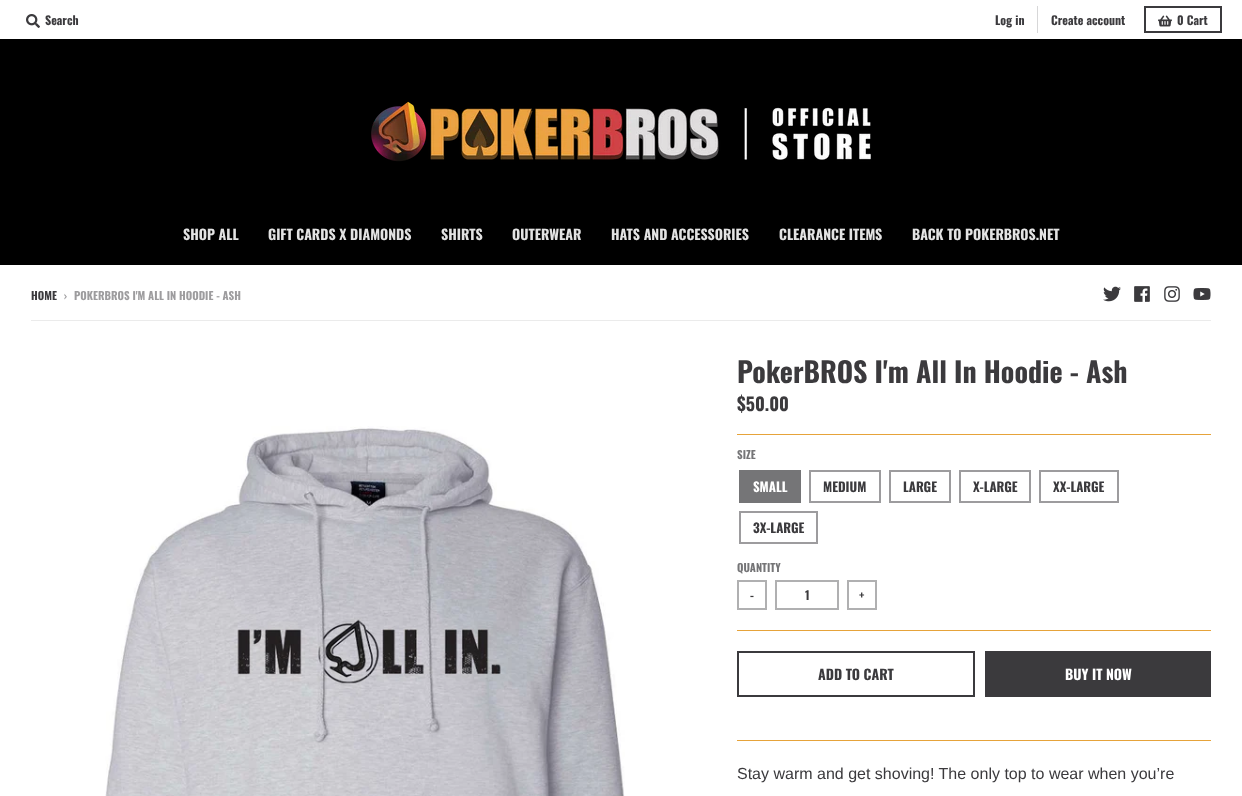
<!DOCTYPE html>
<meta charset="utf-8">
<style>body { margin: 0 } canvas { display: block }</style>
<canvas id="canvas" width="1242" height="796"></canvas>
<img id="img1" src="images/1.png" hidden>
<img id="img2" src="images/2.png" hidden>
<img id="img3" src="images/3.png" hidden>
<img id="img4" src="images/4.png" hidden>
<img id="img5" src="images/5.png" hidden>
<img id="img6" src="images/6.png" hidden>
<img id="img7" src="images/7.png" hidden>
<img id="img8" src="images/8.png" hidden>
<script>
window.onload = function () {
    const canvas = document.getElementById('canvas');
    const context = canvas.getContext('2d');
    context.miterLimit = 4;
    context.fontKerning = 'normal';

    context.fillStyle = 'rgb(255, 255, 255)';
    context.fillRect(0, 0, 1242, 796);
    context.drawImage(document.getElementById('img1'), 26, 14, 14, 14);
    context.fillStyle = 'rgb(215, 215, 216)';
    context.fillRect(1037, 6, 1, 27);
    context.strokeStyle = 'rgb(59, 58, 61)';
    context.lineWidth = 2;
    context.strokeRect(1145, 7, 76, 25);
    context.drawImage(document.getElementById('img2'), 1158, 15, 14, 12);
    context.fillStyle = 'rgb(0, 0, 0)';
    context.fillRect(0, 39, 1242, 226);
    context.drawImage(document.getElementById('img3'), 371, 101, 500, 61);
    context.drawImage(document.getElementById('img4'), 1103, 286, 18, 16);
    context.drawImage(document.getElementById('img5'), 1134, 286, 16, 16);
    context.drawImage(document.getElementById('img6'), 1164, 286, 16, 16);
    context.drawImage(document.getElementById('img7'), 1193, 288, 18, 12);
    context.fillStyle = 'rgb(235, 235, 235)';
    context.fillRect(31, 320, 1180, 1);
    context.drawImage(document.getElementById('img8'), 105, 426, 520, 370);
    context.fillStyle = 'rgb(230, 163, 58)';
    context.fillRect(737, 740, 474, 1);
    context.fillRect(737, 434, 474, 1);
    context.fillRect(737, 630, 474, 1);
    context.fillStyle = 'rgb(117, 117, 119)';
    context.fillRect(739, 470, 62, 33);
    context.strokeStyle = 'rgb(157, 156, 158)';
    context.strokeRect(810, 471, 70, 31);
    context.strokeRect(890, 471, 60, 31);
    context.strokeRect(960, 471, 70, 31);
    context.strokeRect(1040, 471, 78, 31);
    context.strokeRect(740, 512, 77, 31);
    context.strokeStyle = 'rgb(176, 176, 177)';
    context.strokeRect(738, 581, 28, 28);
    context.strokeRect(776, 581, 62, 28);
    context.strokeRect(848, 581, 28, 28);
    context.strokeStyle = 'rgb(59, 58, 61)';
    context.strokeRect(738, 652, 236, 44);
    context.fillStyle = 'rgb(59, 58, 61)';
    context.fillRect(985, 651, 226, 46);
    context.font = 'bold 12px Oswald';
    context.fillText('Search', 45, 25);
    context.fillText('Log in', 995, 25);
    context.fillText('Create account', 1051, 25);
    context.fillText('0 Cart', 1177, 25);
    context.font = 'bold 14px Oswald';
    context.fillStyle = 'rgb(227, 227, 227)';
    context.fillText('SHOP ALL', 183, 240);
    context.fillText('GIFT CARDS X DIAMONDS', 268, 240);
    context.fillText('SHIRTS', 441, 240);
    context.fillText('OUTERWEAR', 512, 240);
    context.fillText('HATS AND ACCESSORIES', 611, 240);
    context.fillText('CLEARANCE ITEMS', 779, 240);
    context.fillText('BACK TO POKERBROS.NET', 912, 240);
    context.font = 'bold 11px Oswald';
    context.fillStyle = 'rgb(59, 58, 61)';
    context.fillText('HOME', 31, 300);
    context.fillStyle = 'rgb(157, 156, 158)';
    context.fillText('›', 64, 300);
    context.fillText('POKERBROS I\'M ALL IN HOODIE - ASH', 74, 300);
    context.font = 'bold 28px Oswald';
    context.fillStyle = 'rgb(59, 58, 61)';
    context.fillText('PokerBROS I\'m All In Hoodie - Ash', 737, 383);
    context.font = 'bold 18px Oswald';
    context.fillText('$50.00', 737, 411);
    context.font = 'bold 11px Oswald';
    context.fillStyle = 'rgb(117, 117, 119)';
    context.fillText('SIZE', 737, 459);
    context.font = 'bold 13px Oswald';
    context.fillStyle = 'rgb(255, 255, 255)';
    context.fillText('SMALL', 753, 492);
    context.fillStyle = 'rgb(59, 58, 61)';
    context.fillText('MEDIUM', 823, 492);
    context.fillText('LARGE', 903, 492);
    context.fillText('X-LARGE', 973, 492);
    context.fillText('XX-LARGE', 1053, 492);
    context.fillText('3X-LARGE', 753, 533);
    context.font = 'bold 11px Oswald';
    context.fillStyle = 'rgb(117, 117, 119)';
    context.fillText('QUANTITY', 737, 572);
    context.font = 'bold 12px Oswald';
    context.fillStyle = 'rgb(59, 58, 61)';
    context.fillText('-', 750, 600);
    context.fillText('1', 805, 600);
    context.fillText('+', 859, 600);
    context.font = 'bold 14px Oswald';
    context.fillText('ADD TO CART', 818, 680);
    context.fillStyle = 'rgb(255, 255, 255)';
    context.fillText('BUY IT NOW', 1065, 680);
    context.font = '16px Liberation Sans';
    context.fillStyle = 'rgb(59, 58, 61)';
    context.fillText('Stay warm and get shoving! The only top to wear when you’re', 737, 779);
};
</script>
